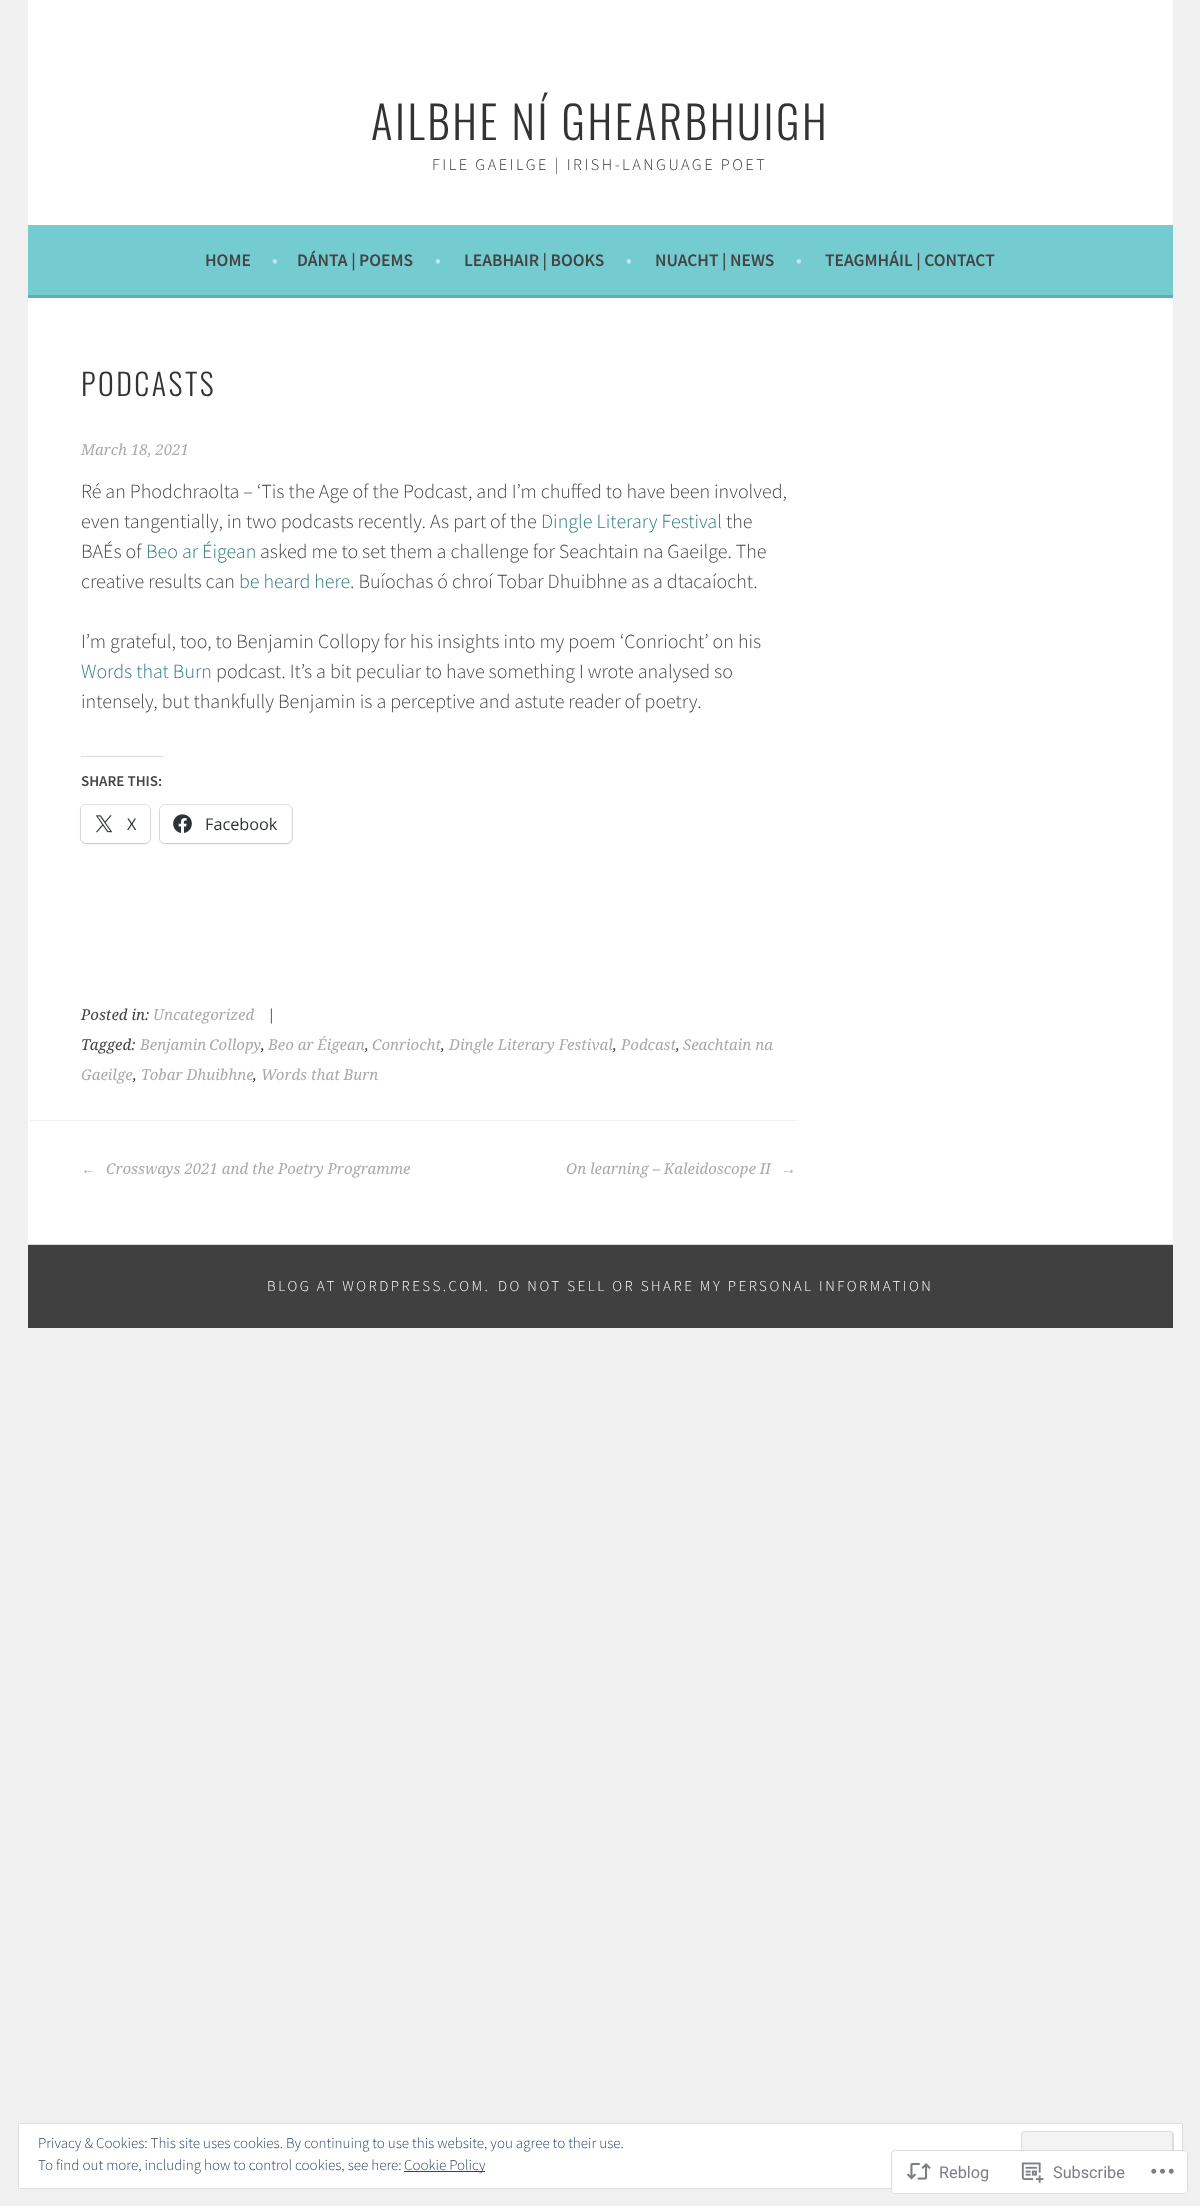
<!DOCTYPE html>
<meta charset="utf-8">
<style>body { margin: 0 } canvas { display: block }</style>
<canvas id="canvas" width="1200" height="2206"></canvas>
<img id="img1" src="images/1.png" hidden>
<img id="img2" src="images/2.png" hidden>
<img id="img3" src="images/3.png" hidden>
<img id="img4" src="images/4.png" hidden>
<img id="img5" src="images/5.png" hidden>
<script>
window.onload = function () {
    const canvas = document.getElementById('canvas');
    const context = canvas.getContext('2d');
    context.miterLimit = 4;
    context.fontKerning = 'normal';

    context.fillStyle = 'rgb(240, 240, 240)';
    context.fillRect(0, 0, 1200, 2206);
    context.fillStyle = 'rgb(255, 255, 255)';
    context.fillRect(28, 0, 1145, 225);
    context.fillStyle = 'rgb(116, 204, 209)';
    context.fillRect(28, 225, 1145, 70);
    context.fillStyle = 'rgb(99, 173, 178)';
    context.fillRect(28, 295, 1145, 3);
    context.fillStyle = 'rgb(255, 255, 255)';
    context.fillRect(28, 298, 1145, 946);
    context.fillStyle = 'rgb(220, 220, 222)';
    context.fillRect(81, 756, 82, 1);
    context.beginPath();
    context.roundRect(80.5, 804.5, 70, 39, 5.5);
    context.strokeStyle = 'rgb(224, 224, 224)';
    context.stroke();
    context.fillStyle = 'rgba(0, 0, 0, 0.12)';
    context.filter = 'blur(1px)';
    context.beginPath();
    context.roundRect(81, 806, 69, 38, 5);
    context.fill();
    context.filter = 'none';
    context.fillStyle = 'rgb(255, 255, 255)';
    context.beginPath();
    context.roundRect(81, 805, 69, 38, 5);
    context.fill();
    context.drawImage(document.getElementById('img1'), 95, 815, 18, 18);
    context.beginPath();
    context.roundRect(159.5, 804.5, 133, 39, 5.5);
    context.stroke();
    context.fillStyle = 'rgba(0, 0, 0, 0.12)';
    context.filter = 'blur(1px)';
    context.beginPath();
    context.roundRect(160, 806, 131, 38, 5);
    context.fill();
    context.filter = 'none';
    context.fillStyle = 'rgb(255, 255, 255)';
    context.beginPath();
    context.roundRect(160, 805, 131, 38, 5);
    context.fill();
    context.drawImage(document.getElementById('img2'), 173, 814, 19, 19);
    context.fillStyle = 'rgb(242, 242, 242)';
    context.fillRect(30, 1120, 768, 1);
    context.fillStyle = 'rgb(64, 64, 64)';
    context.fillRect(28, 1245, 1145, 83);
    context.fillStyle = 'rgb(217, 217, 217)';
    context.fillRect(28, 1244, 1145, 1);
    context.fillStyle = 'rgb(255, 255, 255)';
    context.beginPath();
    context.rect(18.5, 2123.5, 1164, 65);
    context.fill();
    context.strokeStyle = 'rgb(222, 222, 222)';
    context.stroke();
    context.fillStyle = 'rgb(243, 243, 243)';
    context.beginPath();
    context.roundRect(1021, 2131, 153, 49, 4);
    context.fill();
    context.fillStyle = 'rgb(219, 219, 219)';
    context.beginPath();
    context.moveTo(1023, 2175);
    context.lineTo(1023, 2176);
    context.bezierCurveTo(1023, 2178, 1024, 2179, 1026, 2179);
    context.lineTo(1170, 2179);
    context.bezierCurveTo(1172, 2179, 1173, 2178, 1173, 2176);
    context.lineTo(1173, 2136);
    context.bezierCurveTo(1173, 2135, 1173, 2134, 1172, 2133);
    context.lineTo(1172, 2174);
    context.bezierCurveTo(1172, 2175, 1171, 2176, 1170, 2176);
    context.lineTo(1025, 2176);
    context.closePath();
    context.fill();
    context.beginPath();
    context.roundRect(1021.5, 2131.5, 152, 48, 3.5);
    context.stroke();
    context.fillStyle = 'rgb(46, 68, 103)';
    context.fillRect(404, 2171, 81, 1);
    context.fillStyle = 'rgba(255, 255, 255, 0.98)';
    context.beginPath();
    context.roundRect(891, 2150, 297, 44, 4);
    context.fill();
    context.beginPath();
    context.roundRect(891.5, 2150.5, 296, 43, 3.5);
    context.strokeStyle = 'rgba(220, 220, 222, 0.98)';
    context.stroke();
    context.drawImage(document.getElementById('img3'), 906, 2162, 25, 18);
    context.drawImage(document.getElementById('img4'), 1021, 2162, 23, 21);
    context.drawImage(document.getElementById('img5'), 1151, 2168, 23, 6);
    context.letterSpacing = '2.5px';
    context.font = '300 45px Oswald';
    context.fillStyle = 'rgb(51, 51, 51)';
    context.fillText('AILBHE NÍ GHEARBHUIGH', 371, 140);
    context.font = '300 16.25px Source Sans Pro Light';
    context.fillText('FILE GAEILGE | IRISH-LANGUAGE POET', 432, 170);
    context.letterSpacing = '0px';
    context.font = '600 17.5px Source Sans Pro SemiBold';
    context.fillStyle = 'rgb(68, 68, 68)';
    context.fillText('HOME', 205, 266);
    context.fillStyle = 'rgb(193, 232, 234)';
    context.fillText('•', 272, 266);
    context.fillStyle = 'rgb(68, 68, 68)';
    context.fillText('DÁNTA | POEMS', 297, 266);
    context.fillStyle = 'rgb(193, 232, 234)';
    context.fillText('•', 435, 266);
    context.fillStyle = 'rgb(68, 68, 68)';
    context.fillText('LEABHAIR | BOOKS', 464, 266);
    context.fillStyle = 'rgb(193, 232, 234)';
    context.fillText('•', 626, 266);
    context.fillStyle = 'rgb(68, 68, 68)';
    context.fillText('NUACHT | NEWS', 655, 266);
    context.fillStyle = 'rgb(193, 232, 234)';
    context.fillText('•', 796, 266);
    context.fillStyle = 'rgb(68, 68, 68)';
    context.fillText('TEAGMHÁIL | CONTACT', 825, 266);
    context.letterSpacing = '2.5px';
    context.font = '300 30px Oswald';
    context.fillStyle = 'rgb(51, 51, 51)';
    context.fillText('PODCASTS', 81, 396);
    context.letterSpacing = '0px';
    context.font = 'italic 15px Droid Serif';
    context.fillStyle = 'rgb(170, 170, 170)';
    context.fillText('March 18, 2021', 81, 455);
    context.font = '300 20px Source Sans Pro Light';
    context.fillStyle = 'rgb(68, 68, 68)';
    context.fillText('Ré an Phodchraolta – ‘Tis the Age of the Podcast, and I’m chuffed to have been involved,', 81, 498);
    context.fillText('even tangentially, in two podcasts recently. As part of the', 81, 528);
    context.fillStyle = 'rgb(43, 121, 124)';
    context.fillText('Dingle Literary Festival', 541, 528);
    context.fillStyle = 'rgb(68, 68, 68)';
    context.fillText('the', 726, 528);
    context.fillText('BAÉs of', 81, 558);
    context.fillStyle = 'rgb(43, 121, 124)';
    context.fillText('Beo ar Éigean', 146, 558);
    context.fillStyle = 'rgb(68, 68, 68)';
    context.fillText('asked me to set them a challenge for Seachtain na Gaeilge. The', 260, 558);
    context.fillText('creative results can', 81, 588);
    context.fillStyle = 'rgb(43, 121, 124)';
    context.fillText('be heard here', 239, 588);
    context.fillStyle = 'rgb(68, 68, 68)';
    context.fillText('. Buíochas ó chroí Tobar Dhuibhne as a dtacaíocht.', 350, 588);
    context.fillText('I’m grateful, too, to Benjamin Collopy for his insights into my poem ‘Conriocht’ on his', 81, 648);
    context.fillStyle = 'rgb(43, 121, 124)';
    context.fillText('Words that Burn', 81, 678);
    context.fillStyle = 'rgb(68, 68, 68)';
    context.fillText('podcast. It’s a bit peculiar to have something I wrote analysed so', 216, 678);
    context.fillText('intensely, but thankfully Benjamin is a perceptive and astute reader of poetry.', 81, 708);
    context.font = '600 15px Source Sans Pro SemiBold';
    context.fillText('SHARE THIS:', 81, 786);
    context.font = '16.25px Open Sans';
    context.fillStyle = 'rgb(44, 51, 56)';
    context.fillText('X', 127, 830);
    context.fillText('Facebook', 205, 830);
    context.font = 'italic 15px Droid Serif';
    context.fillStyle = 'rgb(68, 68, 68)';
    context.fillText('Posted in:', 81, 1020);
    context.fillStyle = 'rgb(170, 170, 170)';
    context.fillText('Uncategorized', 153, 1020);
    context.fillStyle = 'rgb(68, 68, 68)';
    context.fillText('|', 267, 1020);
    context.fillText('Tagged:', 81, 1050);
    context.wordSpacing = '-1px';
    context.fillStyle = 'rgb(170, 170, 170)';
    context.fillText('Benjamin Collopy', 140, 1050);
    context.wordSpacing = '0px';
    context.fillStyle = 'rgb(68, 68, 68)';
    context.fillText(',', 261, 1050);
    context.fillStyle = 'rgb(170, 170, 170)';
    context.fillText('Beo ar Éigean', 268, 1050);
    context.fillStyle = 'rgb(68, 68, 68)';
    context.fillText(',', 365, 1050);
    context.fillStyle = 'rgb(170, 170, 170)';
    context.fillText('Conriocht', 372, 1050);
    context.fillStyle = 'rgb(68, 68, 68)';
    context.fillText(',', 441, 1050);
    context.fillStyle = 'rgb(170, 170, 170)';
    context.fillText('Dingle Literary Festival', 449, 1050);
    context.fillStyle = 'rgb(68, 68, 68)';
    context.fillText(',', 613, 1050);
    context.fillStyle = 'rgb(170, 170, 170)';
    context.fillText('Podcast', 621, 1050);
    context.fillStyle = 'rgb(68, 68, 68)';
    context.fillText(',', 676, 1050);
    context.fillStyle = 'rgb(170, 170, 170)';
    context.fillText('Seachtain na', 683, 1050);
    context.fillText('Gaeilge', 81, 1080);
    context.fillStyle = 'rgb(68, 68, 68)';
    context.fillText(',', 133, 1080);
    context.fillStyle = 'rgb(170, 170, 170)';
    context.fillText('Tobar Dhuibhne', 141, 1080);
    context.fillStyle = 'rgb(68, 68, 68)';
    context.fillText(',', 253, 1080);
    context.fillStyle = 'rgb(170, 170, 170)';
    context.fillText('Words that Burn', 261, 1080);
    context.font = 'italic 15px Liberation Serif';
    context.fillText('←', 81, 1174);
    context.font = 'italic 15px Droid Serif';
    context.fillText('Crossways 2021 and the Poetry Programme', 106, 1174);
    context.fillText('On learning – Kaleidoscope II', 566, 1174);
    context.font = 'italic 15px Liberation Serif';
    context.fillText('→', 781, 1174);
    context.letterSpacing = '2.5px';
    context.font = '300 15px Source Sans Pro Light';
    context.fillStyle = 'rgb(255, 255, 255)';
    context.fillText('BLOG AT WORDPRESS.COM.', 267, 1291);
    context.fillText('DO NOT SELL OR SHARE MY PERSONAL INFORMATION', 498, 1291);
    context.letterSpacing = '0px';
    context.fillStyle = 'rgb(46, 68, 103)';
    context.fillText('Privacy & Cookies: This site uses cookies. By continuing to use this website, you agree to their use.', 38, 2148);
    context.fillText('To find out more, including how to control cookies, see here:', 38, 2170);
    context.fillText('Cookie Policy', 404, 2170);
    context.font = '16.25px Roboto';
    context.fillStyle = 'rgb(123, 127, 133)';
    context.fillText('Reblog', 939, 2178);
    context.fillText('Subscribe', 1053, 2178);
};
</script>
